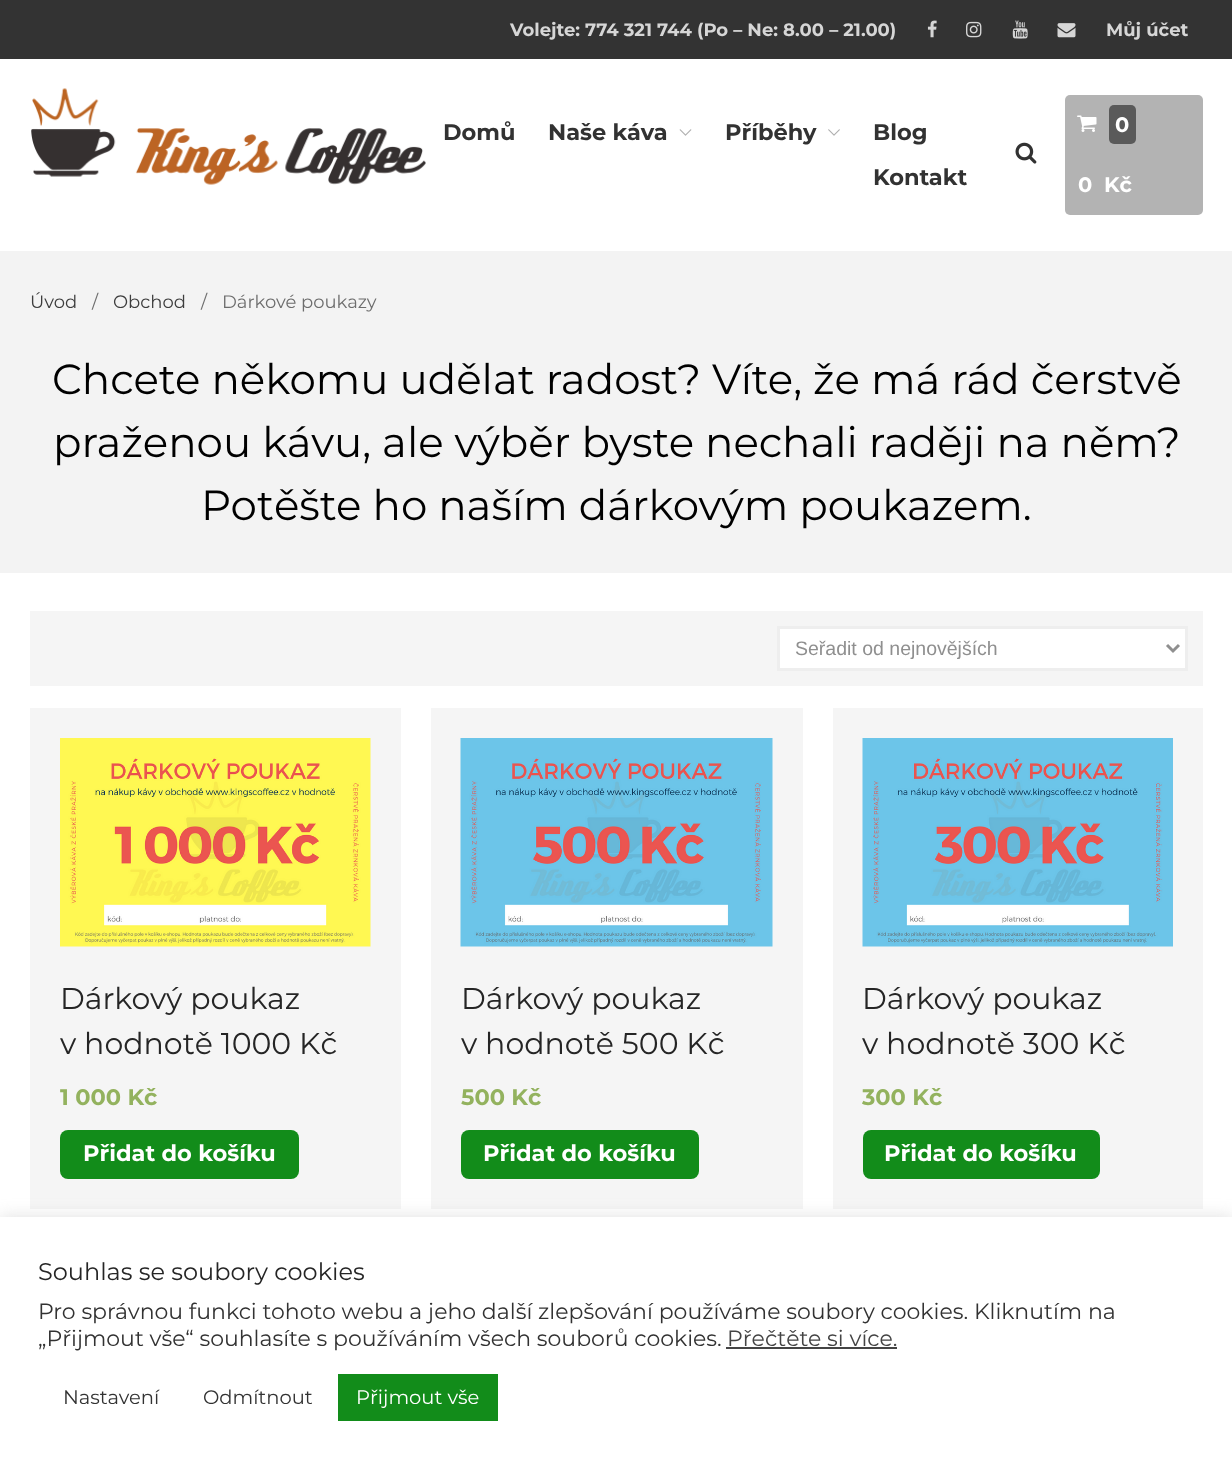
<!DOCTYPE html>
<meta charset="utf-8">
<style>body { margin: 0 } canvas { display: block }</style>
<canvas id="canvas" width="1232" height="1465"></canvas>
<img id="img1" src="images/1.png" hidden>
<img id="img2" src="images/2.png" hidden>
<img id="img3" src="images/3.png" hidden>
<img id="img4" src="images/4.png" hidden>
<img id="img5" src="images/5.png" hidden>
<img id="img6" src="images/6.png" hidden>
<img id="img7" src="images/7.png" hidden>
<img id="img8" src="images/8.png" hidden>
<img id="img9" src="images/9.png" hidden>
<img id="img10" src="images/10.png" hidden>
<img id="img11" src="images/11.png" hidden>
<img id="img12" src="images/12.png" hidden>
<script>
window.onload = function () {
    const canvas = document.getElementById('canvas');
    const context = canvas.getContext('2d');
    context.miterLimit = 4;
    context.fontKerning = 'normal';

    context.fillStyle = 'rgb(255, 255, 255)';
    context.fillRect(0, 0, 1232, 1465);
    context.fillStyle = 'rgb(51, 51, 51)';
    context.fillRect(0, 0, 1232, 59);
    context.drawImage(document.getElementById('img1'), 927, 20, 10, 18);
    context.drawImage(document.getElementById('img2'), 966, 21, 16, 17);
    context.drawImage(document.getElementById('img3'), 1012, 20, 16, 19);
    context.drawImage(document.getElementById('img4'), 1057, 23, 19, 15);
    context.drawImage(document.getElementById('img5'), 31, 88, 395, 97);
    context.drawImage(document.getElementById('img6'), 679, 129, 13, 7);
    context.drawImage(document.getElementById('img7'), 828, 129, 12, 7);
    context.drawImage(document.getElementById('img8'), 1015, 142, 22, 22);
    context.fillStyle = 'rgb(179, 179, 179)';
    context.beginPath();
    context.roundRect(1065, 95, 138, 120, 5);
    context.fill();
    context.drawImage(document.getElementById('img9'), 1077, 115, 20, 17);
    context.fillStyle = 'rgb(90, 90, 90)';
    context.beginPath();
    context.roundRect(1109, 105, 27, 39, 5);
    context.fill();
    context.fillStyle = 'rgb(243, 243, 243)';
    context.fillRect(0, 251, 1232, 322);
    context.fillStyle = 'rgb(245, 245, 245)';
    context.fillRect(30, 611, 1173, 75);
    context.fillStyle = 'rgb(255, 255, 255)';
    context.beginPath();
    context.rect(778.5, 627.5, 408, 42);
    context.fill();
    context.strokeStyle = 'rgb(238, 238, 238)';
    context.lineWidth = 3;
    context.stroke();
    context.beginPath();
    context.moveTo(1167, 645);
    context.lineTo(1173, 651);
    context.lineTo(1179, 645);
    context.strokeStyle = 'rgb(143, 143, 143)';
    context.stroke();
    context.fillStyle = 'rgb(245, 245, 245)';
    context.fillRect(30, 708, 371, 501);
    context.drawImage(document.getElementById('img10'), 60, 738, 311, 209);
    context.fillStyle = 'rgb(18, 140, 26)';
    context.beginPath();
    context.roundRect(60, 1130, 239, 49, 8);
    context.fill();
    context.fillStyle = 'rgb(245, 245, 245)';
    context.fillRect(431, 708, 372, 501);
    context.drawImage(document.getElementById('img11'), 460, 738, 313, 209);
    context.fillStyle = 'rgb(18, 140, 26)';
    context.beginPath();
    context.roundRect(461, 1130, 238, 49, 8);
    context.fill();
    context.fillStyle = 'rgb(245, 245, 245)';
    context.fillRect(833, 708, 370, 501);
    context.drawImage(document.getElementById('img12'), 862, 738, 311, 209);
    context.fillStyle = 'rgb(18, 140, 26)';
    context.beginPath();
    context.roundRect(863, 1130, 237, 49, 8);
    context.fill();
    context.fillStyle = 'rgba(172, 171, 171, 0.3)';
    context.filter = 'blur(7.5px)';
    context.beginPath();
    context.rect(0, 1215, 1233, 249);
    context.fill();
    context.filter = 'none';
    context.fillStyle = 'rgb(255, 255, 255)';
    context.fillRect(0, 1217, 1232, 248);
    context.fillStyle = 'rgb(68, 68, 68)';
    context.fillRect(726, 1347, 171, 2);
    context.fillStyle = 'rgb(18, 140, 26)';
    context.fillRect(338, 1374, 160, 47);
    context.font = 'bold 18px Montserrat';
    context.fillStyle = 'rgb(214, 214, 214)';
    context.fillText('Volejte: 774 321 744 (Po – Ne: 8.00 – 21.00)', 510, 36);
    context.fillText('Můj účet', 1106, 36);
    context.font = 'bold 22.5px Montserrat';
    context.fillStyle = 'rgb(50, 50, 50)';
    context.fillText('Domů', 443, 140);
    context.fillText('Naše káva', 548, 140);
    context.fillText('Příběhy', 725, 140);
    context.fillText('Blog', 873, 140);
    context.fillText('Kontakt', 873, 185);
    context.font = 'bold 21px Montserrat';
    context.fillStyle = 'rgb(255, 255, 255)';
    context.fillText('0', 1115, 132);
    context.fillText('0', 1078, 192);
    context.fillText('Kč', 1104, 192);
    context.font = '18px Montserrat';
    context.fillStyle = 'rgb(61, 61, 61)';
    context.fillText('Úvod', 30, 308);
    context.fillStyle = 'rgb(109, 109, 109)';
    context.fillText('/', 92, 308);
    context.fillStyle = 'rgb(61, 61, 61)';
    context.fillText('Obchod', 113, 308);
    context.fillStyle = 'rgb(109, 109, 109)';
    context.fillText('/', 201, 308);
    context.fillText('Dárkové poukazy', 222, 308);
    context.font = '42px Montserrat';
    context.fillStyle = 'rgb(0, 0, 0)';
    context.fillText('Chcete někomu udělat radost? Víte, že má rád čerstvě', 52, 394);
    context.fillText('praženou kávu, ale výběr byste nechali raději na něm?', 53, 457);
    context.fillText('Potěšte ho naším dárkovým poukazem.', 201, 520);
    context.font = '19.5px Liberation Sans';
    context.fillStyle = 'rgb(143, 143, 143)';
    context.fillText('Seřadit od nejnovějších', 795, 655);
    context.font = '30px Montserrat';
    context.fillStyle = 'rgb(37, 37, 37)';
    context.fillText('Dárkový poukaz', 60, 1009);
    context.fillText('v hodnotě 1000 Kč', 60, 1054);
    context.font = 'bold 22.5px Montserrat';
    context.fillStyle = 'rgb(147, 178, 94)';
    context.fillText('1 000 Kč', 60, 1105);
    context.fillStyle = 'rgb(255, 255, 255)';
    context.fillText('Přidat do košíku', 83, 1161);
    context.font = '30px Montserrat';
    context.fillStyle = 'rgb(37, 37, 37)';
    context.fillText('Dárkový poukaz', 461, 1009);
    context.fillText('v hodnotě 500 Kč', 461, 1054);
    context.font = 'bold 22.5px Montserrat';
    context.fillStyle = 'rgb(147, 178, 94)';
    context.fillText('500 Kč', 461, 1105);
    context.fillStyle = 'rgb(255, 255, 255)';
    context.fillText('Přidat do košíku', 483, 1161);
    context.font = '30px Montserrat';
    context.fillStyle = 'rgb(37, 37, 37)';
    context.fillText('Dárkový poukaz', 862, 1009);
    context.fillText('v hodnotě 300 Kč', 862, 1054);
    context.font = 'bold 22.5px Montserrat';
    context.fillStyle = 'rgb(147, 178, 94)';
    context.fillText('300 Kč', 862, 1105);
    context.fillStyle = 'rgb(255, 255, 255)';
    context.fillText('Přidat do košíku', 884, 1161);
    context.font = '24px Montserrat';
    context.fillStyle = 'rgb(37, 37, 37)';
    context.fillText('Souhlas se soubory cookies', 38, 1280);
    context.font = '22px Montserrat';
    context.fillStyle = 'rgb(50, 50, 50)';
    context.fillText('Pro správnou funkci tohoto webu a jeho další zlepšování používáme soubory cookies. Kliknutím na', 38, 1319);
    context.fillText('„Přijmout vše“ souhlasíte s používáním všech souborů cookies.', 38, 1346);
    context.fillStyle = 'rgb(68, 68, 68)';
    context.fillText('Přečtěte si více.', 727, 1346);
    context.font = '19.5px Montserrat';
    context.fillStyle = 'rgb(50, 50, 50)';
    context.fillText('Nastavení', 63, 1404);
    context.fillText('Odmítnout', 203, 1404);
    context.fillStyle = 'rgb(255, 255, 255)';
    context.fillText('Přijmout vše', 356, 1404);
};
</script>
